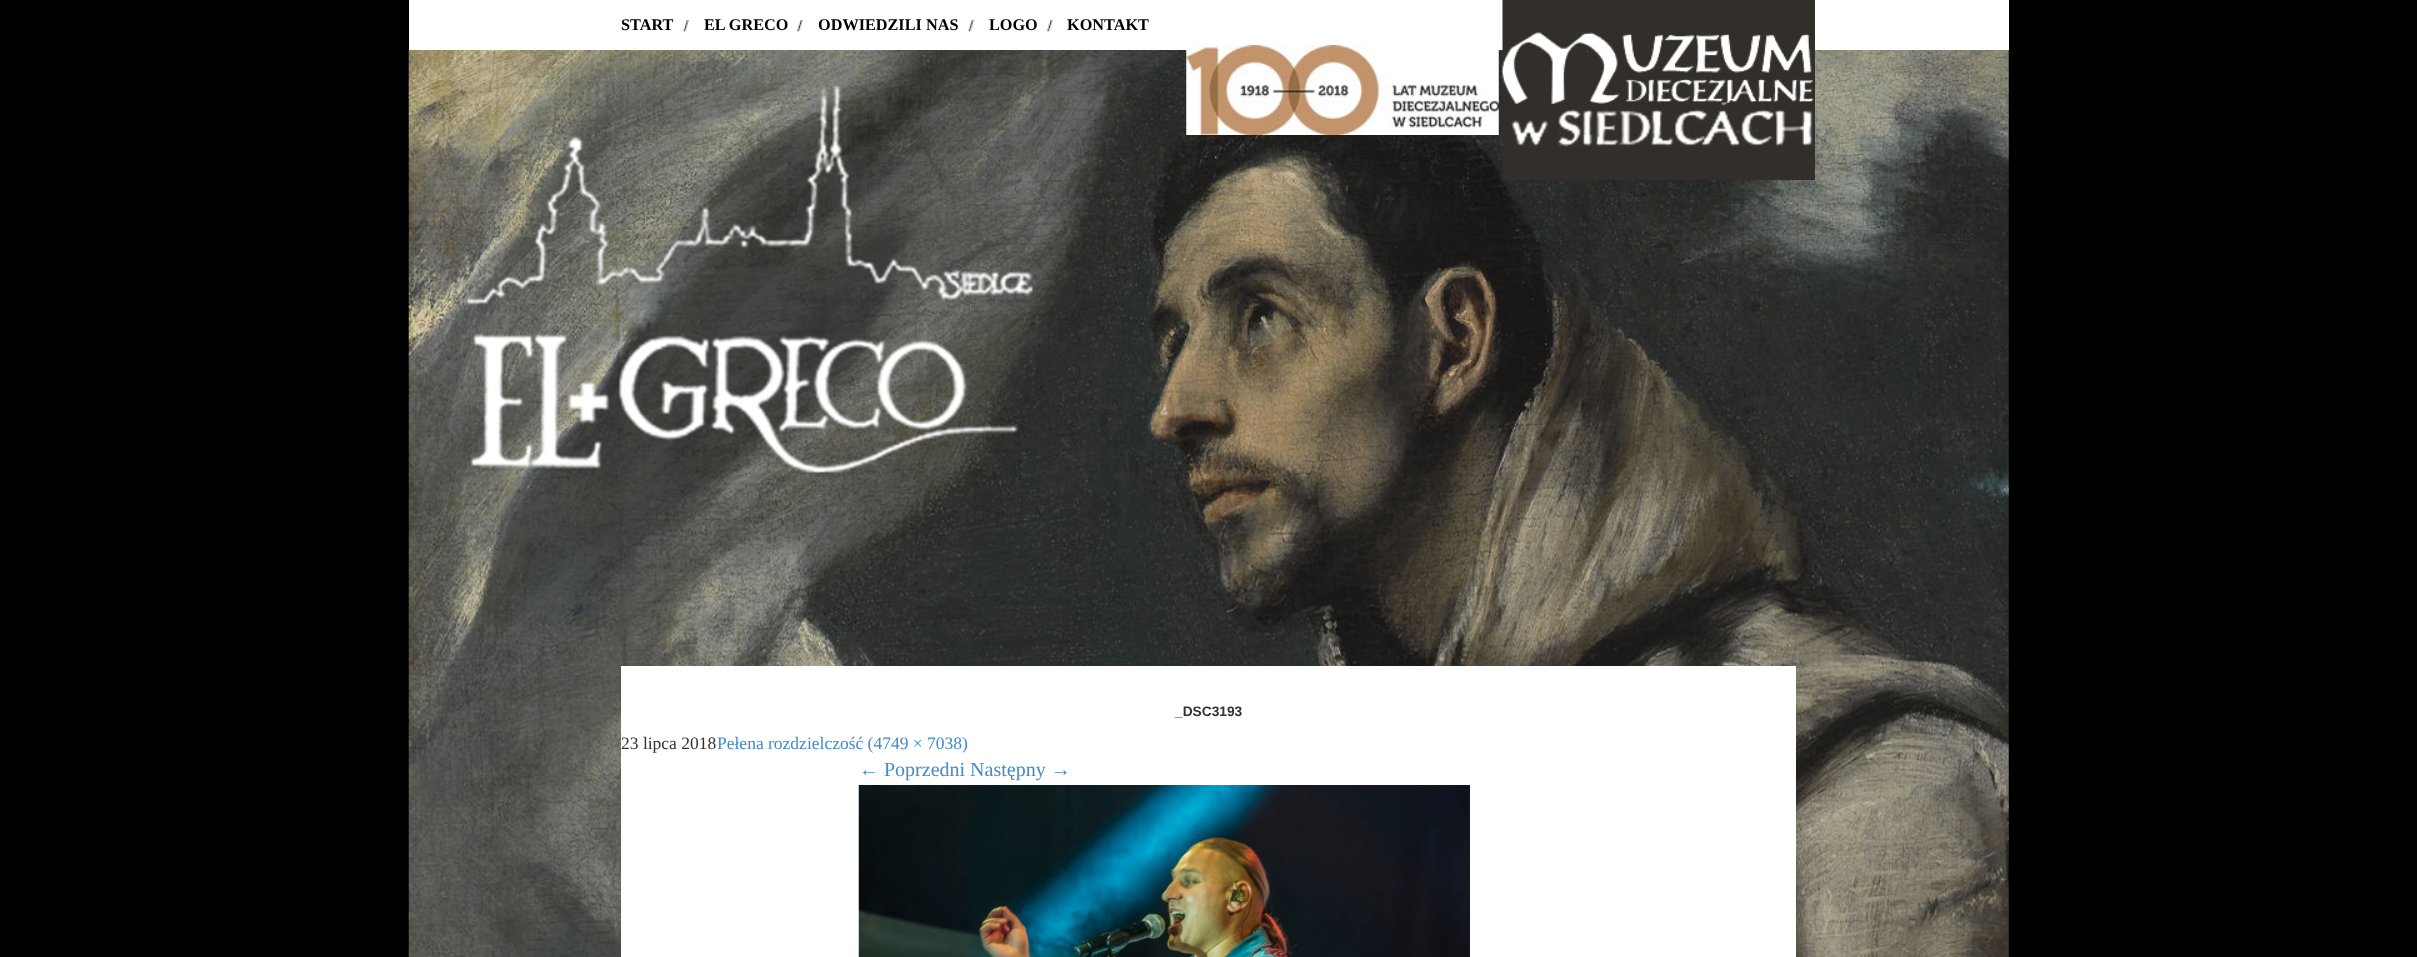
<!DOCTYPE html>
<meta charset="utf-8">
<style>body { margin: 0 } canvas { display: block }</style>
<canvas id="canvas" width="2417" height="957"></canvas>
<img id="img1" src="images/1.png" hidden>
<img id="img2" src="images/2.png" hidden>
<img id="img3" src="images/3.png" hidden>
<img id="img4" src="images/6.png" hidden>
<img id="img5" src="images/4.png" hidden>
<img id="img6" src="images/5.png" hidden>
<img id="img7" src="images/7.png" hidden>
<script>
window.onload = function () {
    const canvas = document.getElementById('canvas');
    const context = canvas.getContext('2d');
    context.miterLimit = 4;
    context.fontKerning = 'normal';

    context.fillStyle = 'rgb(0, 0, 0)';
    context.fillRect(0, 0, 2417, 957);
    context.fillStyle = 'rgb(255, 255, 255)';
    context.fillRect(409, 0, 1600, 50);
    context.drawImage(document.getElementById('img1'), 683, 20, 6, 12);
    context.drawImage(document.getElementById('img2'), 797, 20, 6, 12);
    context.drawImage(document.getElementById('img3'), 968, 20, 6, 12);
    context.drawImage(document.getElementById('img2'), 1047, 20, 6, 12);
    context.drawImage(document.getElementById('img4'), 408, 50, 1601, 907);
    context.drawImage(document.getElementById('img5'), 1186, 45, 313, 90);
    context.drawImage(document.getElementById('img6'), 1502, 0, 313, 180);
    context.fillRect(621, 666, 1175, 291);
    context.drawImage(document.getElementById('img7'), 858, 785, 612, 172);
    context.font = 'bold 16.25px Liberation Serif';
    context.fillStyle = 'rgb(0, 0, 0)';
    context.fillText('START', 621, 30);
    context.fillText('EL GRECO', 704, 30);
    context.fillText('ODWIEDZILI NAS', 818, 30);
    context.fillText('LOGO', 989, 30);
    context.fillText('KONTAKT', 1067, 30);
    context.font = 'bold 13.75px Liberation Sans';
    context.fillStyle = 'rgb(51, 51, 51)';
    context.fillText('_DSC3193', 1175, 716);
    context.font = '17.5px Liberation Serif';
    context.fillText('23 lipca 2018', 621, 749);
    context.fillStyle = 'rgb(66, 139, 202)';
    context.fillText('Pełena rozdzielczość (4749 × 7038)', 717, 749);
    context.font = '20px Liberation Serif';
    context.fillText('← Poprzedni Następny →', 859, 776);
};
</script>
